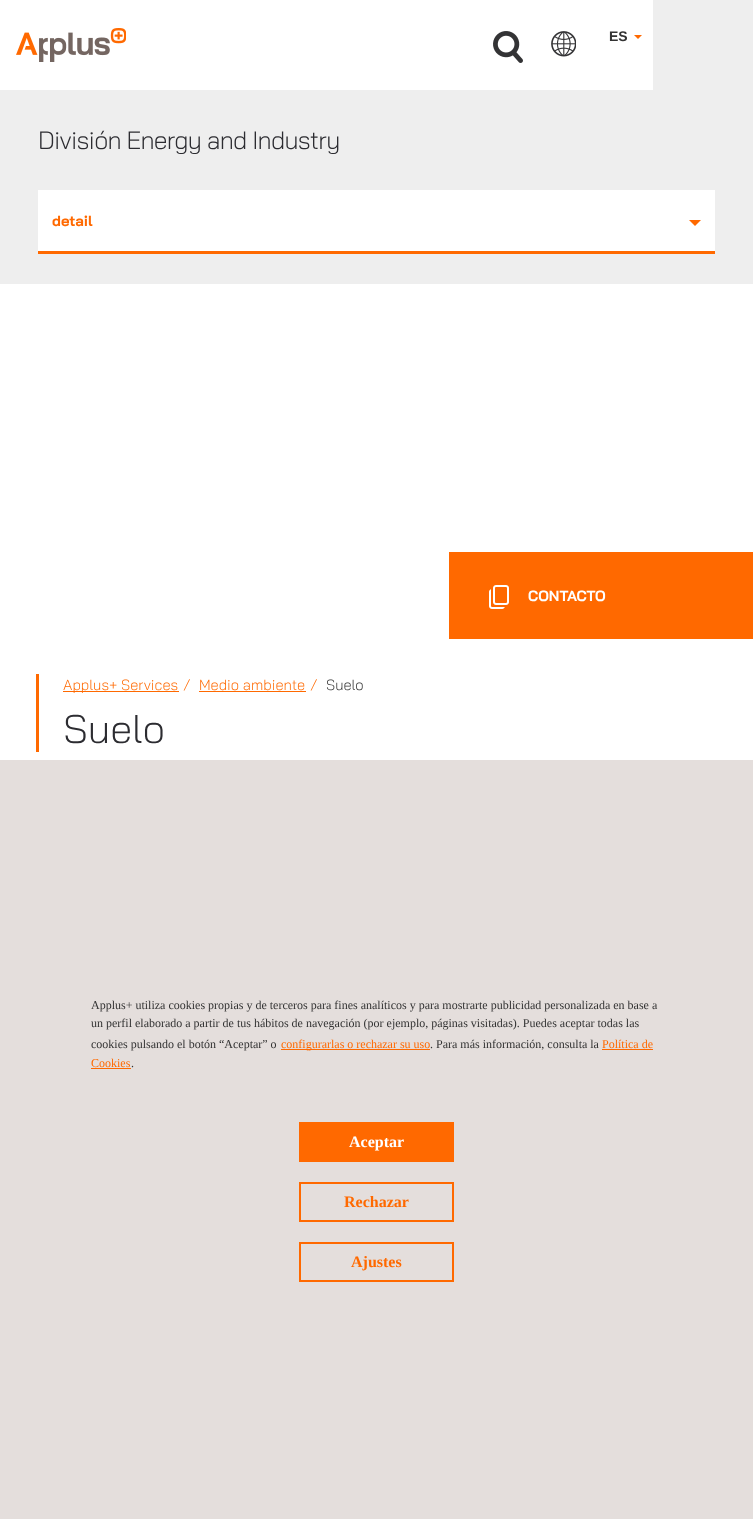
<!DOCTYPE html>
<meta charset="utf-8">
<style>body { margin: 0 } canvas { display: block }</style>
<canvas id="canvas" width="753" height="1519"></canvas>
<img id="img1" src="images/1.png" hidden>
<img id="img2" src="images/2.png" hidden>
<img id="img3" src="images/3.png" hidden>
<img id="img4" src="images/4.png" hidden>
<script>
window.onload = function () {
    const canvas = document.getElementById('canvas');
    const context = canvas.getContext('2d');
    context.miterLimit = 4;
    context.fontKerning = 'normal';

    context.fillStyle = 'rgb(255, 255, 255)';
    context.fillRect(0, 0, 753, 1519);
    context.drawImage(document.getElementById('img1'), 16, 28, 110, 34);
    context.drawImage(document.getElementById('img2'), 493, 31, 30, 32);
    context.drawImage(document.getElementById('img3'), 551, 31, 25, 26);
    context.fillStyle = 'rgb(255, 105, 0)';
    context.beginPath();
    context.moveTo(634, 35);
    context.lineTo(642, 35);
    context.lineTo(638, 39);
    context.closePath();
    context.fill();
    context.fillStyle = 'rgb(238, 238, 238)';
    context.fillRect(653, 0, 100, 90);
    context.fillRect(0, 90, 753, 194);
    context.fillStyle = 'rgb(255, 255, 255)';
    context.fillRect(38, 190, 677, 61);
    context.fillStyle = 'rgb(255, 105, 0)';
    context.fillRect(38, 251, 677, 3);
    context.beginPath();
    context.moveTo(689, 220);
    context.lineTo(701, 220);
    context.lineTo(695, 226);
    context.closePath();
    context.fill();
    context.fillRect(449, 552, 304, 87);
    context.drawImage(document.getElementById('img4'), 489, 585, 20, 24);
    context.fillRect(36, 674, 3, 78);
    context.fillRect(63, 691, 116, 1);
    context.fillRect(199, 691, 107, 1);
    context.fillStyle = 'rgb(228, 222, 220)';
    context.fillRect(0, 760, 753, 759);
    context.fillStyle = 'rgb(253, 105, 0)';
    context.fillRect(281, 1049, 149, 1);
    context.fillRect(602, 1049, 51, 1);
    context.fillRect(91, 1068, 40, 1);
    context.fillStyle = 'rgb(255, 105, 0)';
    context.fillRect(299, 1122, 155, 40);
    context.strokeStyle = 'rgb(255, 105, 0)';
    context.lineWidth = 2;
    context.strokeRect(300, 1183, 153, 38);
    context.strokeRect(300, 1243, 153, 38);
    context.font = 'bold 14px Liberation Sans';
    context.fillStyle = 'rgb(51, 51, 51)';
    context.fillText('ES', 609, 41);
    context.letterSpacing = '-0.75px';
    context.font = '300 25px Bai Jamjuree';
    context.fillStyle = 'rgb(44, 44, 49)';
    context.fillText('División Energy and Industry', 38, 149);
    context.letterSpacing = '0px';
    context.font = 'bold 14.75px Bai Jamjuree';
    context.fillStyle = 'rgb(255, 105, 0)';
    context.fillText('detail', 52, 226);
    context.fillStyle = 'rgb(255, 255, 255)';
    context.fillText('CONTACTO', 528, 601);
    context.font = '300 14.75px Bai Jamjuree';
    context.fillStyle = 'rgb(255, 105, 0)';
    context.fillText('Applus+ Services', 63, 690);
    context.fillText('/', 183, 690);
    context.fillText('Medio ambiente', 199, 690);
    context.fillText('/', 310, 690);
    context.fillStyle = 'rgb(51, 51, 51)';
    context.fillText('Suelo', 326, 690);
    context.font = '300 40px Bai Jamjuree';
    context.fillStyle = 'rgb(44, 44, 49)';
    context.fillText('Suelo', 63, 743);
    context.font = '12px Liberation Serif';
    context.fillStyle = 'rgb(51, 51, 51)';
    context.fillText('Applus+ utiliza cookies propias y de terceros para fines analíticos y para mostrarte publicidad personalizada en base a', 91, 1009);
    context.fillText('un perfil elaborado a partir de tus hábitos de navegación (por ejemplo, páginas visitadas). Puedes aceptar todas las', 91, 1027);
    context.fillText('cookies pulsando el botón “Aceptar” o', 91, 1048);
    context.fillStyle = 'rgb(255, 105, 0)';
    context.fillText('configurarlas o rechazar su uso', 281, 1048);
    context.fillStyle = 'rgb(51, 51, 51)';
    context.fillText('. Para más información, consulta la', 430, 1048);
    context.fillStyle = 'rgb(255, 105, 0)';
    context.fillText('Política de', 602, 1048);
    context.fillText('Cookies', 91, 1067);
    context.fillStyle = 'rgb(51, 51, 51)';
    context.fillText('.', 131, 1067);
    context.font = 'bold 16px Liberation Serif';
    context.fillStyle = 'rgb(255, 255, 255)';
    context.fillText('Aceptar', 349, 1147);
    context.fillStyle = 'rgb(255, 105, 0)';
    context.fillText('Rechazar', 344, 1207);
    context.fillText('Ajustes', 351, 1267);
};
</script>
